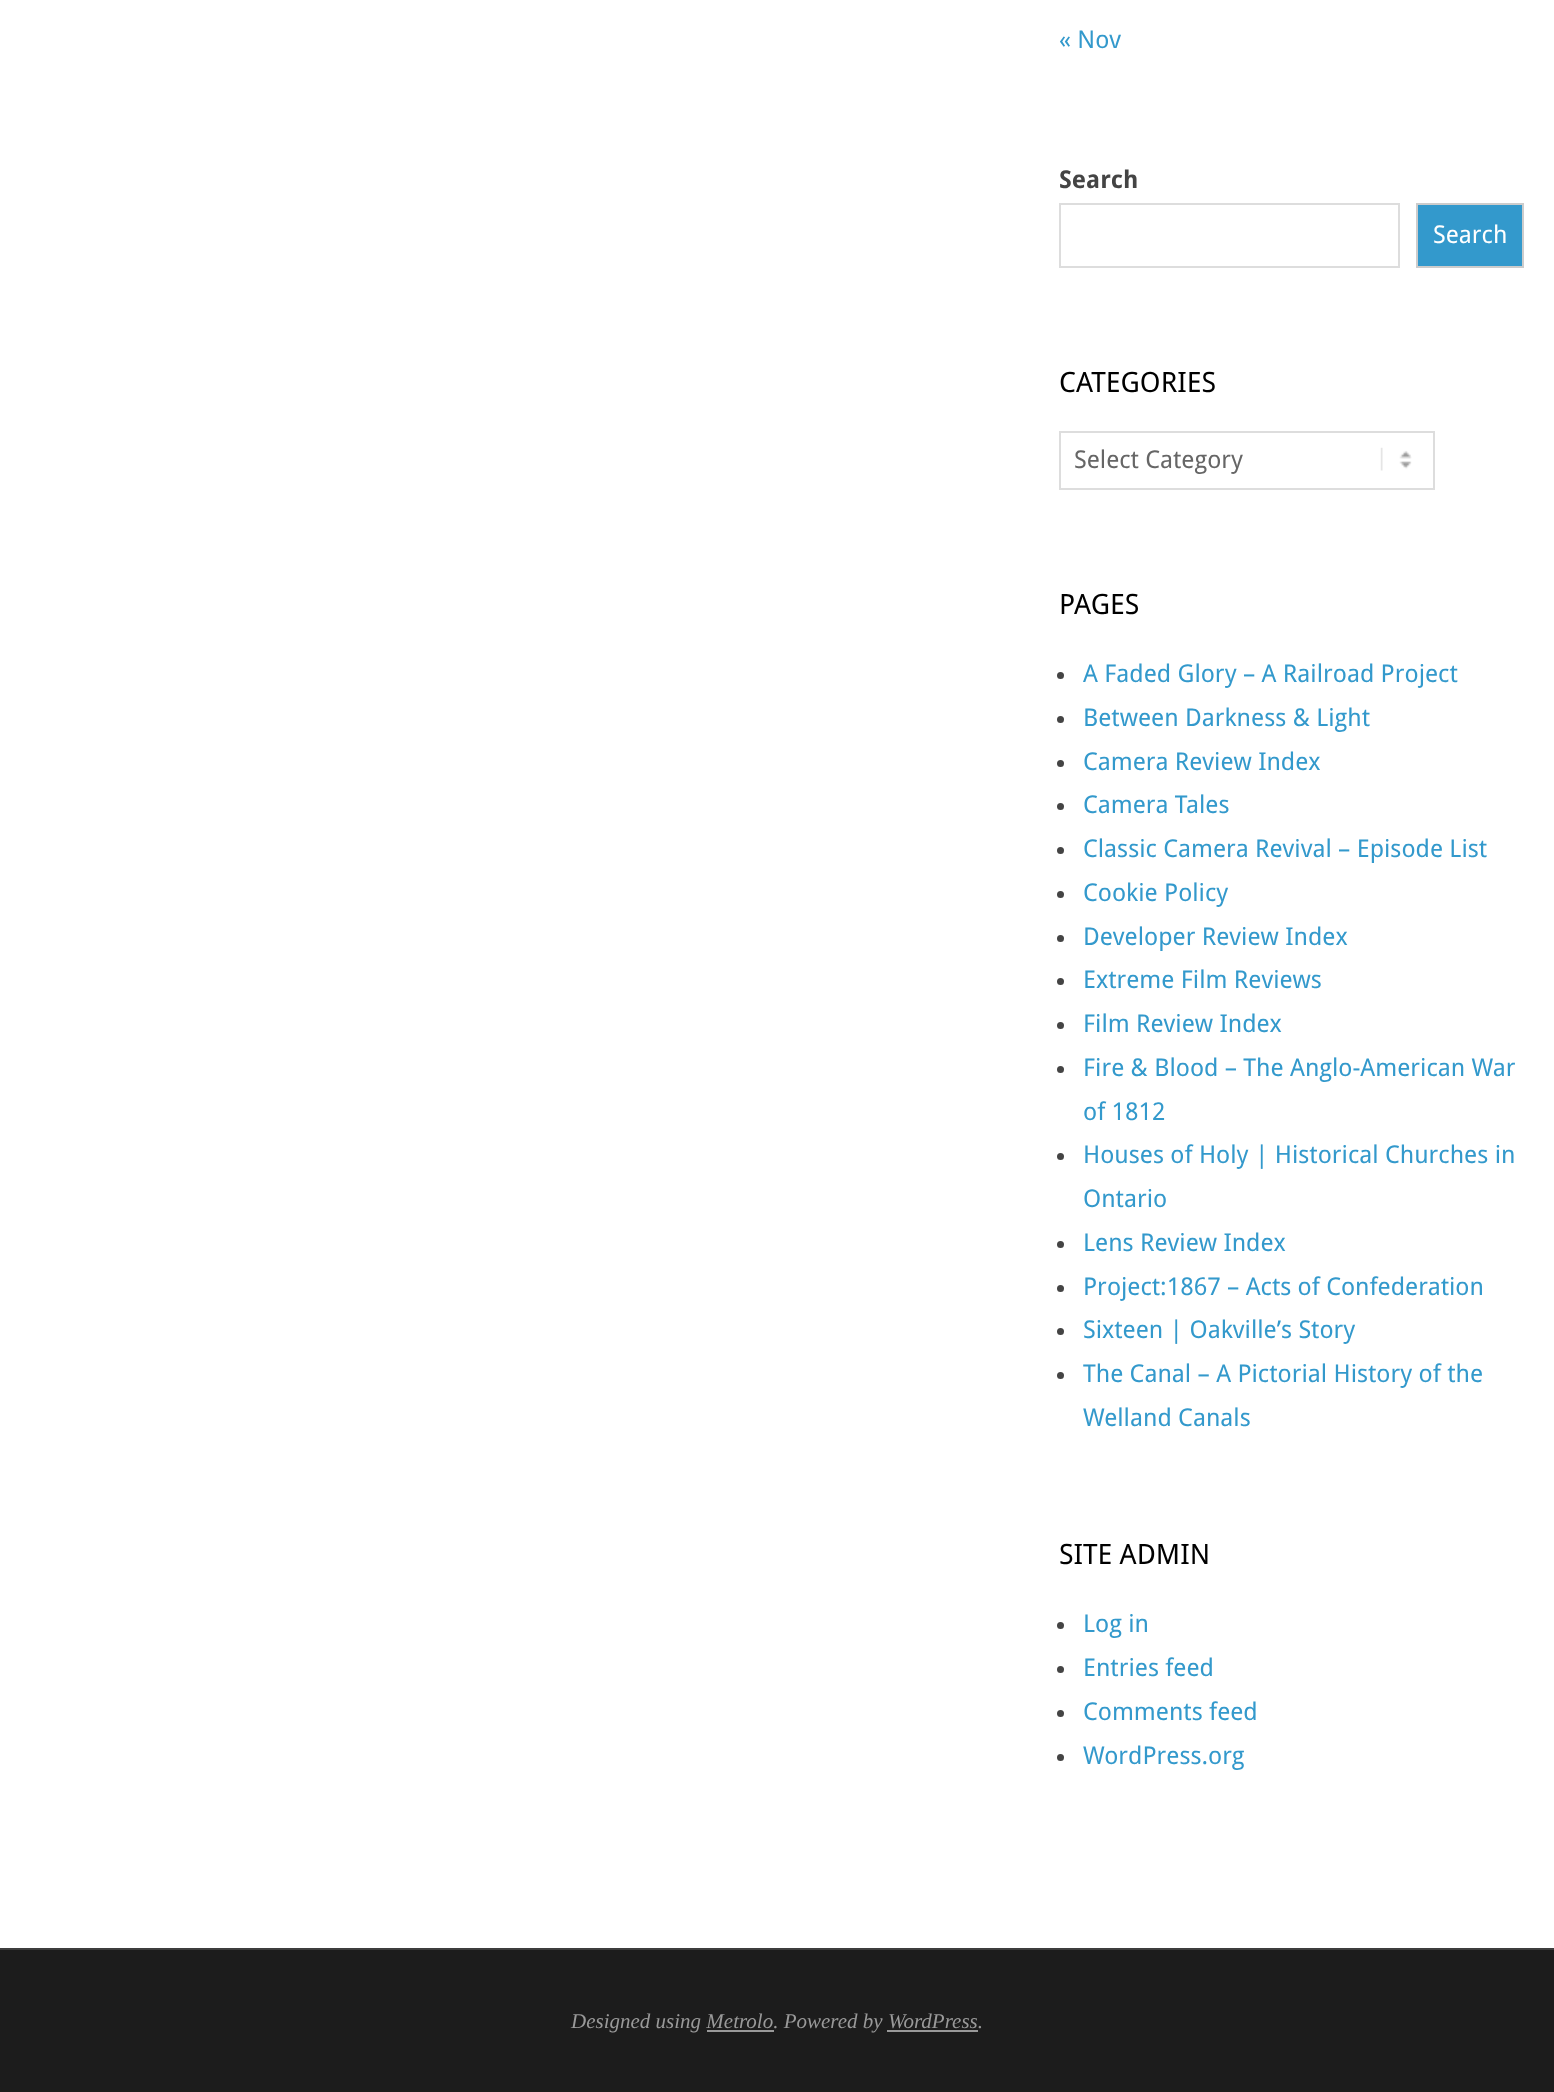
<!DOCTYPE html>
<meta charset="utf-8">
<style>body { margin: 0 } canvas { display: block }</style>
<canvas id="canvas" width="1554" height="2092"></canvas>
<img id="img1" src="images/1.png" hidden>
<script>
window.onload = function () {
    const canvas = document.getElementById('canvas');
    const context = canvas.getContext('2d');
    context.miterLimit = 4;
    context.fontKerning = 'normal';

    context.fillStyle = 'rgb(255, 255, 255)';
    context.fillRect(0, 0, 1554, 2092);
    context.strokeStyle = 'rgb(221, 221, 221)';
    context.lineWidth = 2;
    context.strokeRect(1060, 204, 339, 63);
    context.fillStyle = 'rgb(51, 153, 204)';
    context.beginPath();
    context.rect(1417, 204, 106, 63);
    context.fill();
    context.strokeStyle = 'rgb(204, 204, 204)';
    context.stroke();
    context.drawImage(document.getElementById('img1'), 1380, 447, 32, 24);
    context.strokeStyle = 'rgb(221, 221, 221)';
    context.strokeRect(1060, 432, 374, 57);
    context.fillStyle = 'rgb(68, 68, 68)';
    context.beginPath();
    context.arc(1060.5, 675.5, 3.5, 0, 2 * Math.PI);
    context.fill();
    context.beginPath();
    context.arc(1060.5, 719.5, 3.5, 0, 2 * Math.PI);
    context.fill();
    context.beginPath();
    context.arc(1060.5, 763.5, 3.5, 0, 2 * Math.PI);
    context.fill();
    context.beginPath();
    context.arc(1060.5, 806.5, 3.5, 0, 2 * Math.PI);
    context.fill();
    context.beginPath();
    context.arc(1060.5, 850.5, 3.5, 0, 2 * Math.PI);
    context.fill();
    context.beginPath();
    context.arc(1060.5, 894.5, 3.5, 0, 2 * Math.PI);
    context.fill();
    context.beginPath();
    context.arc(1060.5, 938.5, 3.5, 0, 2 * Math.PI);
    context.fill();
    context.beginPath();
    context.arc(1060.5, 981.5, 3.5, 0, 2 * Math.PI);
    context.fill();
    context.beginPath();
    context.arc(1060.5, 1025.5, 3.5, 0, 2 * Math.PI);
    context.fill();
    context.beginPath();
    context.arc(1060.5, 1069.5, 3.5, 0, 2 * Math.PI);
    context.fill();
    context.beginPath();
    context.arc(1060.5, 1156.5, 3.5, 0, 2 * Math.PI);
    context.fill();
    context.beginPath();
    context.arc(1060.5, 1244.5, 3.5, 0, 2 * Math.PI);
    context.fill();
    context.beginPath();
    context.arc(1060.5, 1288.5, 3.5, 0, 2 * Math.PI);
    context.fill();
    context.beginPath();
    context.arc(1060.5, 1331.5, 3.5, 0, 2 * Math.PI);
    context.fill();
    context.beginPath();
    context.arc(1060.5, 1375.5, 3.5, 0, 2 * Math.PI);
    context.fill();
    context.beginPath();
    context.arc(1060.5, 1625.5, 3.5, 0, 2 * Math.PI);
    context.fill();
    context.beginPath();
    context.arc(1060.5, 1669.5, 3.5, 0, 2 * Math.PI);
    context.fill();
    context.beginPath();
    context.arc(1060.5, 1713.5, 3.5, 0, 2 * Math.PI);
    context.fill();
    context.beginPath();
    context.arc(1060.5, 1757.5, 3.5, 0, 2 * Math.PI);
    context.fill();
    context.fillStyle = 'rgb(28, 28, 28)';
    context.fillRect(0, 1950, 1554, 142);
    context.fillStyle = 'rgb(62, 62, 62)';
    context.fillRect(0, 1948, 1554, 2);
    context.fillStyle = 'rgb(153, 153, 153)';
    context.fillRect(707, 2030, 67, 2);
    context.fillRect(887, 2030, 91, 2);
    context.font = '24.5px Droid Sans';
    context.fillStyle = 'rgb(51, 153, 204)';
    context.fillText('« Nov', 1059, 48);
    context.font = 'bold 24.5px Droid Sans';
    context.fillStyle = 'rgb(68, 68, 68)';
    context.fillText('Search', 1059, 188);
    context.font = '24.5px Droid Sans';
    context.fillStyle = 'rgb(255, 255, 255)';
    context.fillText('Search', 1433, 243);
    context.font = '28px Droid Sans';
    context.fillStyle = 'rgb(0, 0, 0)';
    context.fillText('CATEGORIES', 1059, 392);
    context.font = '24.5px Droid Sans';
    context.fillStyle = 'rgb(102, 102, 102)';
    context.fillText('Select Category', 1074, 468);
    context.font = '28px Droid Sans';
    context.fillStyle = 'rgb(0, 0, 0)';
    context.fillText('PAGES', 1059, 614);
    context.font = '24.5px Droid Sans';
    context.fillStyle = 'rgb(51, 153, 204)';
    context.fillText('A Faded Glory – A Railroad Project', 1083, 682);
    context.fillText('Between Darkness & Light', 1083, 726);
    context.fillText('Camera Review Index', 1083, 770);
    context.fillText('Camera Tales', 1083, 813);
    context.fillText('Classic Camera Revival – Episode List', 1083, 857);
    context.fillText('Cookie Policy', 1083, 901);
    context.fillText('Developer Review Index', 1083, 945);
    context.fillText('Extreme Film Reviews', 1083, 988);
    context.fillText('Film Review Index', 1083, 1032);
    context.fillText('Fire & Blood – The Anglo-American War', 1083, 1076);
    context.fillText('of 1812', 1083, 1120);
    context.fillText('Houses of Holy | Historical Churches in', 1083, 1163);
    context.fillText('Ontario', 1083, 1207);
    context.fillText('Lens Review Index', 1083, 1251);
    context.fillText('Project:1867 – Acts of Confederation', 1083, 1295);
    context.fillText('Sixteen | Oakville’s Story', 1083, 1338);
    context.fillText('The Canal – A Pictorial History of the', 1083, 1382);
    context.fillText('Welland Canals', 1083, 1426);
    context.font = '28px Droid Sans';
    context.fillStyle = 'rgb(0, 0, 0)';
    context.fillText('SITE ADMIN', 1059, 1564);
    context.font = '24.5px Droid Sans';
    context.fillStyle = 'rgb(51, 153, 204)';
    context.fillText('Log in', 1083, 1632);
    context.fillText('Entries feed', 1083, 1676);
    context.fillText('Comments feed', 1083, 1720);
    context.fillText('WordPress.org', 1083, 1764);
    context.font = 'italic 21px Liberation Serif';
    context.fillStyle = 'rgb(153, 153, 153)';
    context.fillText('Designed using Metrolo. Powered by WordPress.', 571, 2028);
};
</script>
